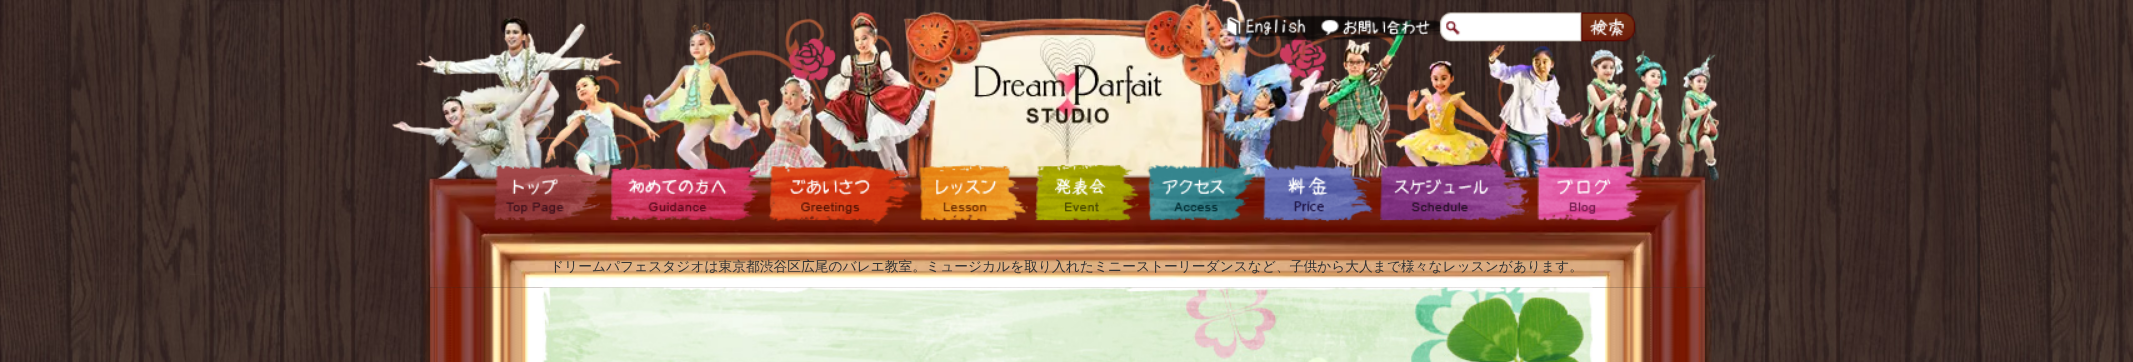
<!DOCTYPE html>
<meta charset="utf-8">
<style>body { margin: 0 } canvas { display: block }</style>
<canvas id="canvas" width="2133" height="362"></canvas>
<img id="img1" src="images/1.png" hidden>
<img id="img2" src="images/2.png" hidden>
<img id="img3" src="images/3.png" hidden>
<img id="img4" src="images/4.png" hidden>
<img id="img5" src="images/5.png" hidden>
<script>
window.onload = function () {
    const canvas = document.getElementById('canvas');
    const context = canvas.getContext('2d');
    context.miterLimit = 4;
    context.fontKerning = 'normal';

    context.fillStyle = 'rgb(255, 255, 255)';
    context.fillRect(0, 0, 2133, 362);
    context.drawImage(document.getElementById('img1'), 0, 0, 2133, 362);
    context.drawImage(document.getElementById('img2'), 392, 0, 1327, 288);
    context.drawImage(document.getElementById('img3'), 493, 12, 1150, 215);
    context.drawImage(document.getElementById('img4'), 423, 287, 1289, 75);
    context.drawImage(document.getElementById('img5'), 542, 287, 1051, 75);
    context.font = '500 13.75px WenQuanYi Zen Hei';
    context.fillStyle = 'rgb(51, 51, 51)';
    context.fillText('ドリームパフェスタジオは東京都渋谷区広尾のバレエ教室。ミュージカルを取り入れたミニーストーリーダンスなど、子供から大人まで様々なレッスンがあります。', 550, 271);
};
</script>
